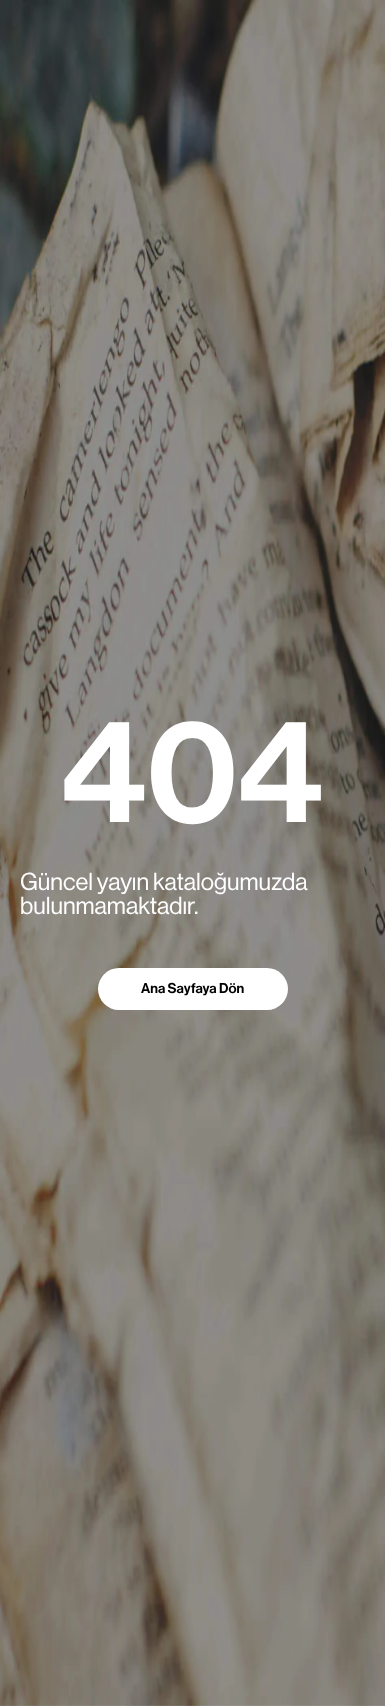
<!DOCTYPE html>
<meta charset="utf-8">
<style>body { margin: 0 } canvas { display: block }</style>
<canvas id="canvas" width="385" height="1706"></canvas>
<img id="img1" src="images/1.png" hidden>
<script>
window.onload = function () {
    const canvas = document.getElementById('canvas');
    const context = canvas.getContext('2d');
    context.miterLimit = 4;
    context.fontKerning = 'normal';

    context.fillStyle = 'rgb(255, 255, 255)';
    context.fillRect(0, 0, 385, 1706);
    context.drawImage(document.getElementById('img1'), 0, 0, 385, 1706);
    context.beginPath();
    context.roundRect(98, 968, 190, 42, 21);
    context.fill();
    context.font = '600 144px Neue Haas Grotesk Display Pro';
    context.fillText('404', 61, 822);
    context.font = '24px Neue Haas Grotesk Display Pro';
    context.fillText('Güncel yayın kataloğumuzda', 20, 890);
    context.fillText('bulunmamaktadır.', 20, 914);
    context.font = '600 14px Neue Haas Grotesk Display Pro';
    context.fillStyle = 'rgb(0, 0, 0)';
    context.fillText('Ana Sayfaya Dön', 141, 993);
};
</script>
